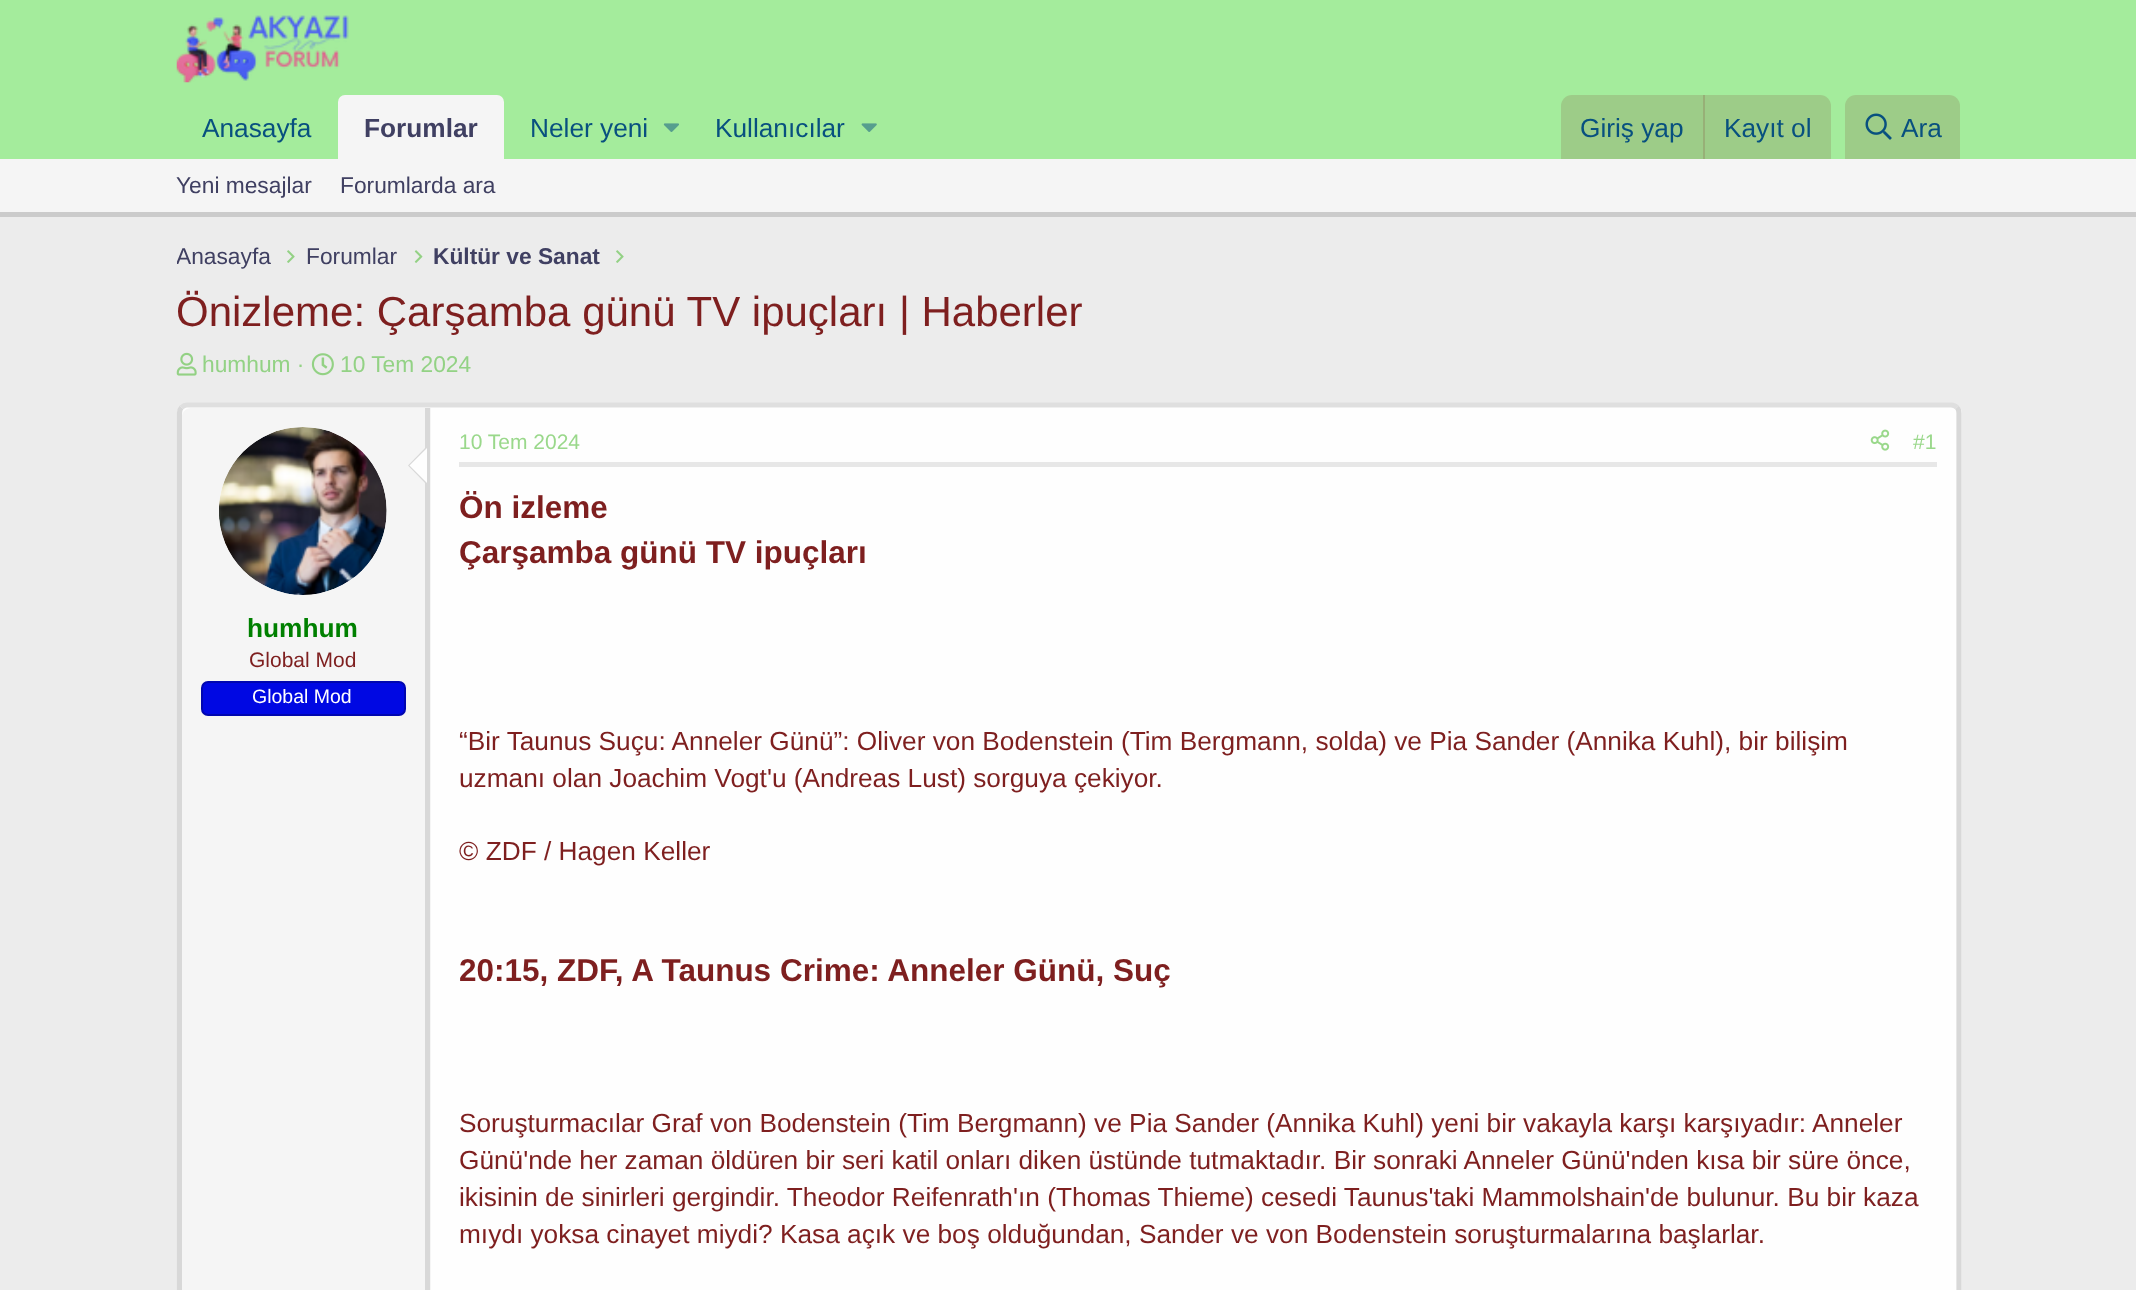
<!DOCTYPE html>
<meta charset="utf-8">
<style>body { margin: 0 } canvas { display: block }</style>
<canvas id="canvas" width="2136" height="1290"></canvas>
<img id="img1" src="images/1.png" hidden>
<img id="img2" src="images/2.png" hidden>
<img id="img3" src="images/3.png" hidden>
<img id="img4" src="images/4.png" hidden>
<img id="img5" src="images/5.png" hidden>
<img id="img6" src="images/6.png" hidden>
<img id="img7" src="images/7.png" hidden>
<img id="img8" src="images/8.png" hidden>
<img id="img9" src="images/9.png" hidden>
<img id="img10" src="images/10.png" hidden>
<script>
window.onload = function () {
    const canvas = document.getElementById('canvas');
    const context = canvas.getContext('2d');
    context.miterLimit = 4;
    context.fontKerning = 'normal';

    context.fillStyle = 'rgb(236, 236, 236)';
    context.fillRect(0, 0, 2136, 1290);
    context.fillStyle = 'rgb(164, 236, 156)';
    context.fillRect(0, 0, 2136, 159);
    context.drawImage(document.getElementById('img1'), 176, 15, 173, 68);
    context.fillStyle = 'rgb(245, 245, 245)';
    context.beginPath();
    context.roundRect(338, 95, 166, 64, [7, 7, 0, 0]);
    context.fill();
    context.drawImage(document.getElementById('img2'), 663, 123, 16, 9);
    context.drawImage(document.getElementById('img3'), 861, 123, 16, 9);
    context.fillStyle = 'rgb(157, 204, 136)';
    context.beginPath();
    context.roundRect(1561, 95, 270, 64, [11, 11, 0, 0]);
    context.fill();
    context.fillStyle = 'rgb(151, 176, 119)';
    context.fillRect(1703, 95, 2, 64);
    context.fillStyle = 'rgb(157, 204, 136)';
    context.beginPath();
    context.roundRect(1845, 95, 115, 64, [11, 11, 0, 0]);
    context.fill();
    context.drawImage(document.getElementById('img4'), 1865, 113, 27, 27);
    context.fillStyle = 'rgb(245, 245, 245)';
    context.fillRect(0, 159, 2136, 53);
    context.fillStyle = 'rgb(203, 203, 203)';
    context.fillRect(0, 212, 2136, 5);
    context.drawImage(document.getElementById('img5'), 287, 250, 8, 13);
    context.drawImage(document.getElementById('img6'), 414, 250, 9, 13);
    context.drawImage(document.getElementById('img5'), 616, 250, 8, 13);
    context.drawImage(document.getElementById('img7'), 176, 352, 21, 24);
    context.drawImage(document.getElementById('img8'), 311, 353, 23, 23);
    context.fillStyle = 'rgb(254, 254, 254)';
    context.beginPath();
    context.roundRect(177, 403, 1785, 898, 11);
    context.fill();
    context.beginPath();
    context.moveTo(181.5, 407.5);
    context.bezierCurveTo(183, 406, 185, 405, 187, 405);
    context.lineTo(1951, 405);
    context.bezierCurveTo(1953.5, 405, 1955.5, 406, 1957, 407.5);
    context.strokeStyle = 'rgb(223, 223, 223)';
    context.lineWidth = 5.2;
    context.stroke();
    context.beginPath();
    context.moveTo(1957, 407.5);
    context.bezierCurveTo(1958.5, 409, 1959, 411, 1959, 413);
    context.lineTo(1959, 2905);
    context.bezierCurveTo(1959, 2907, 1958.5, 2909, 1957, 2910.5);
    context.strokeStyle = 'rgb(216, 216, 216)';
    context.stroke();
    context.beginPath();
    context.moveTo(181.5, 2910.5);
    context.bezierCurveTo(180, 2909, 179.5, 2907, 179.5, 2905);
    context.lineTo(179.5, 413);
    context.bezierCurveTo(179.5, 411, 180, 409, 181.5, 407.5);
    context.stroke();
    context.fillStyle = 'rgb(245, 245, 245)';
    context.beginPath();
    context.moveTo(191, 408);
    context.lineTo(431, 408);
    context.lineTo(431, 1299);
    context.lineTo(191, 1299);
    context.bezierCurveTo(186, 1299, 182, 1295, 182, 1290);
    context.lineTo(182, 417);
    context.bezierCurveTo(182, 412, 186, 408, 191, 408);
    context.closePath();
    context.fill();
    context.fillStyle = 'rgb(216, 216, 216)';
    context.fillRect(425, 408, 5, 882);
    context.fillStyle = 'rgb(254, 254, 254)';
    context.beginPath();
    context.arc(303, 511, 84, 0, 2 * Math.PI);
    context.fill();
    context.drawImage(document.getElementById('img9'), 219, 427, 168, 168);
    context.fillStyle = 'rgb(216, 216, 216)';
    context.beginPath();
    context.moveTo(427, 446);
    context.lineTo(427, 485);
    context.lineTo(408, 465.5);
    context.closePath();
    context.fill();
    context.fillStyle = 'rgb(254, 254, 254)';
    context.beginPath();
    context.moveTo(427, 448);
    context.lineTo(427, 483);
    context.lineTo(409.5, 465.5);
    context.closePath();
    context.fill();
    context.fillStyle = 'rgb(0, 8, 227)';
    context.beginPath();
    context.roundRect(202, 682, 203, 33, 6);
    context.fill();
    context.strokeStyle = 'rgb(0, 6, 176)';
    context.lineWidth = 2;
    context.stroke();
    context.fillStyle = 'rgb(231, 231, 231)';
    context.fillRect(459, 462, 1478, 5);
    context.drawImage(document.getElementById('img10'), 1870, 429, 20, 22);
    context.font = '26.25px Liberation Sans';
    context.fillStyle = 'rgb(8, 80, 127)';
    context.fillText('Anasayfa', 202, 137);
    context.font = 'bold 26.25px Liberation Sans';
    context.fillStyle = 'rgb(64, 64, 98)';
    context.fillText('Forumlar', 364, 137);
    context.font = '26.25px Liberation Sans';
    context.fillStyle = 'rgb(8, 80, 127)';
    context.fillText('Neler yeni', 530, 137);
    context.fillText('Kullanıcılar', 715, 137);
    context.fillText('Giriş yap', 1580, 137);
    context.fillText('Kayıt ol', 1724, 137);
    context.fillText('Ara', 1901, 137);
    context.font = '22.75px Liberation Sans';
    context.fillStyle = 'rgb(64, 64, 98)';
    context.fillText('Yeni mesajlar', 176, 193);
    context.fillText('Forumlarda ara', 340, 193);
    context.save();
    context.beginPath();
    context.rect(177, 240, 94, 33);
    context.clip();
    context.fillText('Anasayfa', 176, 264);
    context.restore();
    context.fillText('Forumlar', 306, 264);
    context.font = 'bold 22.75px Liberation Sans';
    context.fillText('Kültür ve Sanat', 433, 264);
    context.font = '42px Liberation Sans';
    context.fillStyle = 'rgb(126, 31, 31)';
    context.fillText('Önizleme: Çarşamba günü TV ipuçları | Haberler', 176, 326);
    context.font = '22.75px Liberation Sans';
    context.fillStyle = 'rgb(147, 210, 133)';
    context.fillText('humhum ·', 202, 372);
    context.fillText('10 Tem 2024', 340, 372);
    context.font = 'bold 26.25px Liberation Sans';
    context.fillStyle = 'rgb(0, 128, 0)';
    context.fillText('humhum', 247, 637);
    context.font = '21px Liberation Sans';
    context.fillStyle = 'rgb(126, 31, 31)';
    context.fillText('Global Mod', 249, 667);
    context.font = '19.5px Liberation Sans';
    context.fillStyle = 'rgb(255, 255, 255)';
    context.fillText('Global Mod', 252, 703);
    context.font = '21px Liberation Sans';
    context.fillStyle = 'rgb(154, 216, 139)';
    context.fillText('10 Tem 2024', 459, 449);
    context.fillText('#1', 1913, 449);
    context.font = 'bold 31.5px Liberation Sans';
    context.fillStyle = 'rgb(126, 31, 31)';
    context.fillText('Ön izleme', 459, 518);
    context.fillText('Çarşamba günü TV ipuçları', 459, 563);
    context.font = '26.25px Liberation Sans';
    context.fillText('“Bir Taunus Suçu: Anneler Günü”: Oliver von Bodenstein (Tim Bergmann, solda) ve Pia Sander (Annika Kuhl), bir bilişim', 459, 750);
    context.fillText('uzmanı olan Joachim Vogt\'u (Andreas Lust) sorguya çekiyor.', 459, 787);
    context.fillText('© ZDF / Hagen Keller', 459, 860);
    context.font = 'bold 31.5px Liberation Sans';
    context.fillText('20:15, ZDF, A Taunus Crime: Anneler Günü, Suç', 459, 981);
    context.font = '26.25px Liberation Sans';
    context.fillText('Soruşturmacılar Graf von Bodenstein (Tim Bergmann) ve Pia Sander (Annika Kuhl) yeni bir vakayla karşı karşıyadır: Anneler', 459, 1132);
    context.fillText('Günü\'nde her zaman öldüren bir seri katil onları diken üstünde tutmaktadır. Bir sonraki Anneler Günü\'nden kısa bir süre önce,', 459, 1169);
    context.fillText('ikisinin de sinirleri gergindir. Theodor Reifenrath\'ın (Thomas Thieme) cesedi Taunus\'taki Mammolshain\'de bulunur. Bu bir kaza', 459, 1206);
    context.fillText('mıydı yoksa cinayet miydi? Kasa açık ve boş olduğundan, Sander ve von Bodenstein soruşturmalarına başlarlar.', 459, 1243);
};
</script>
